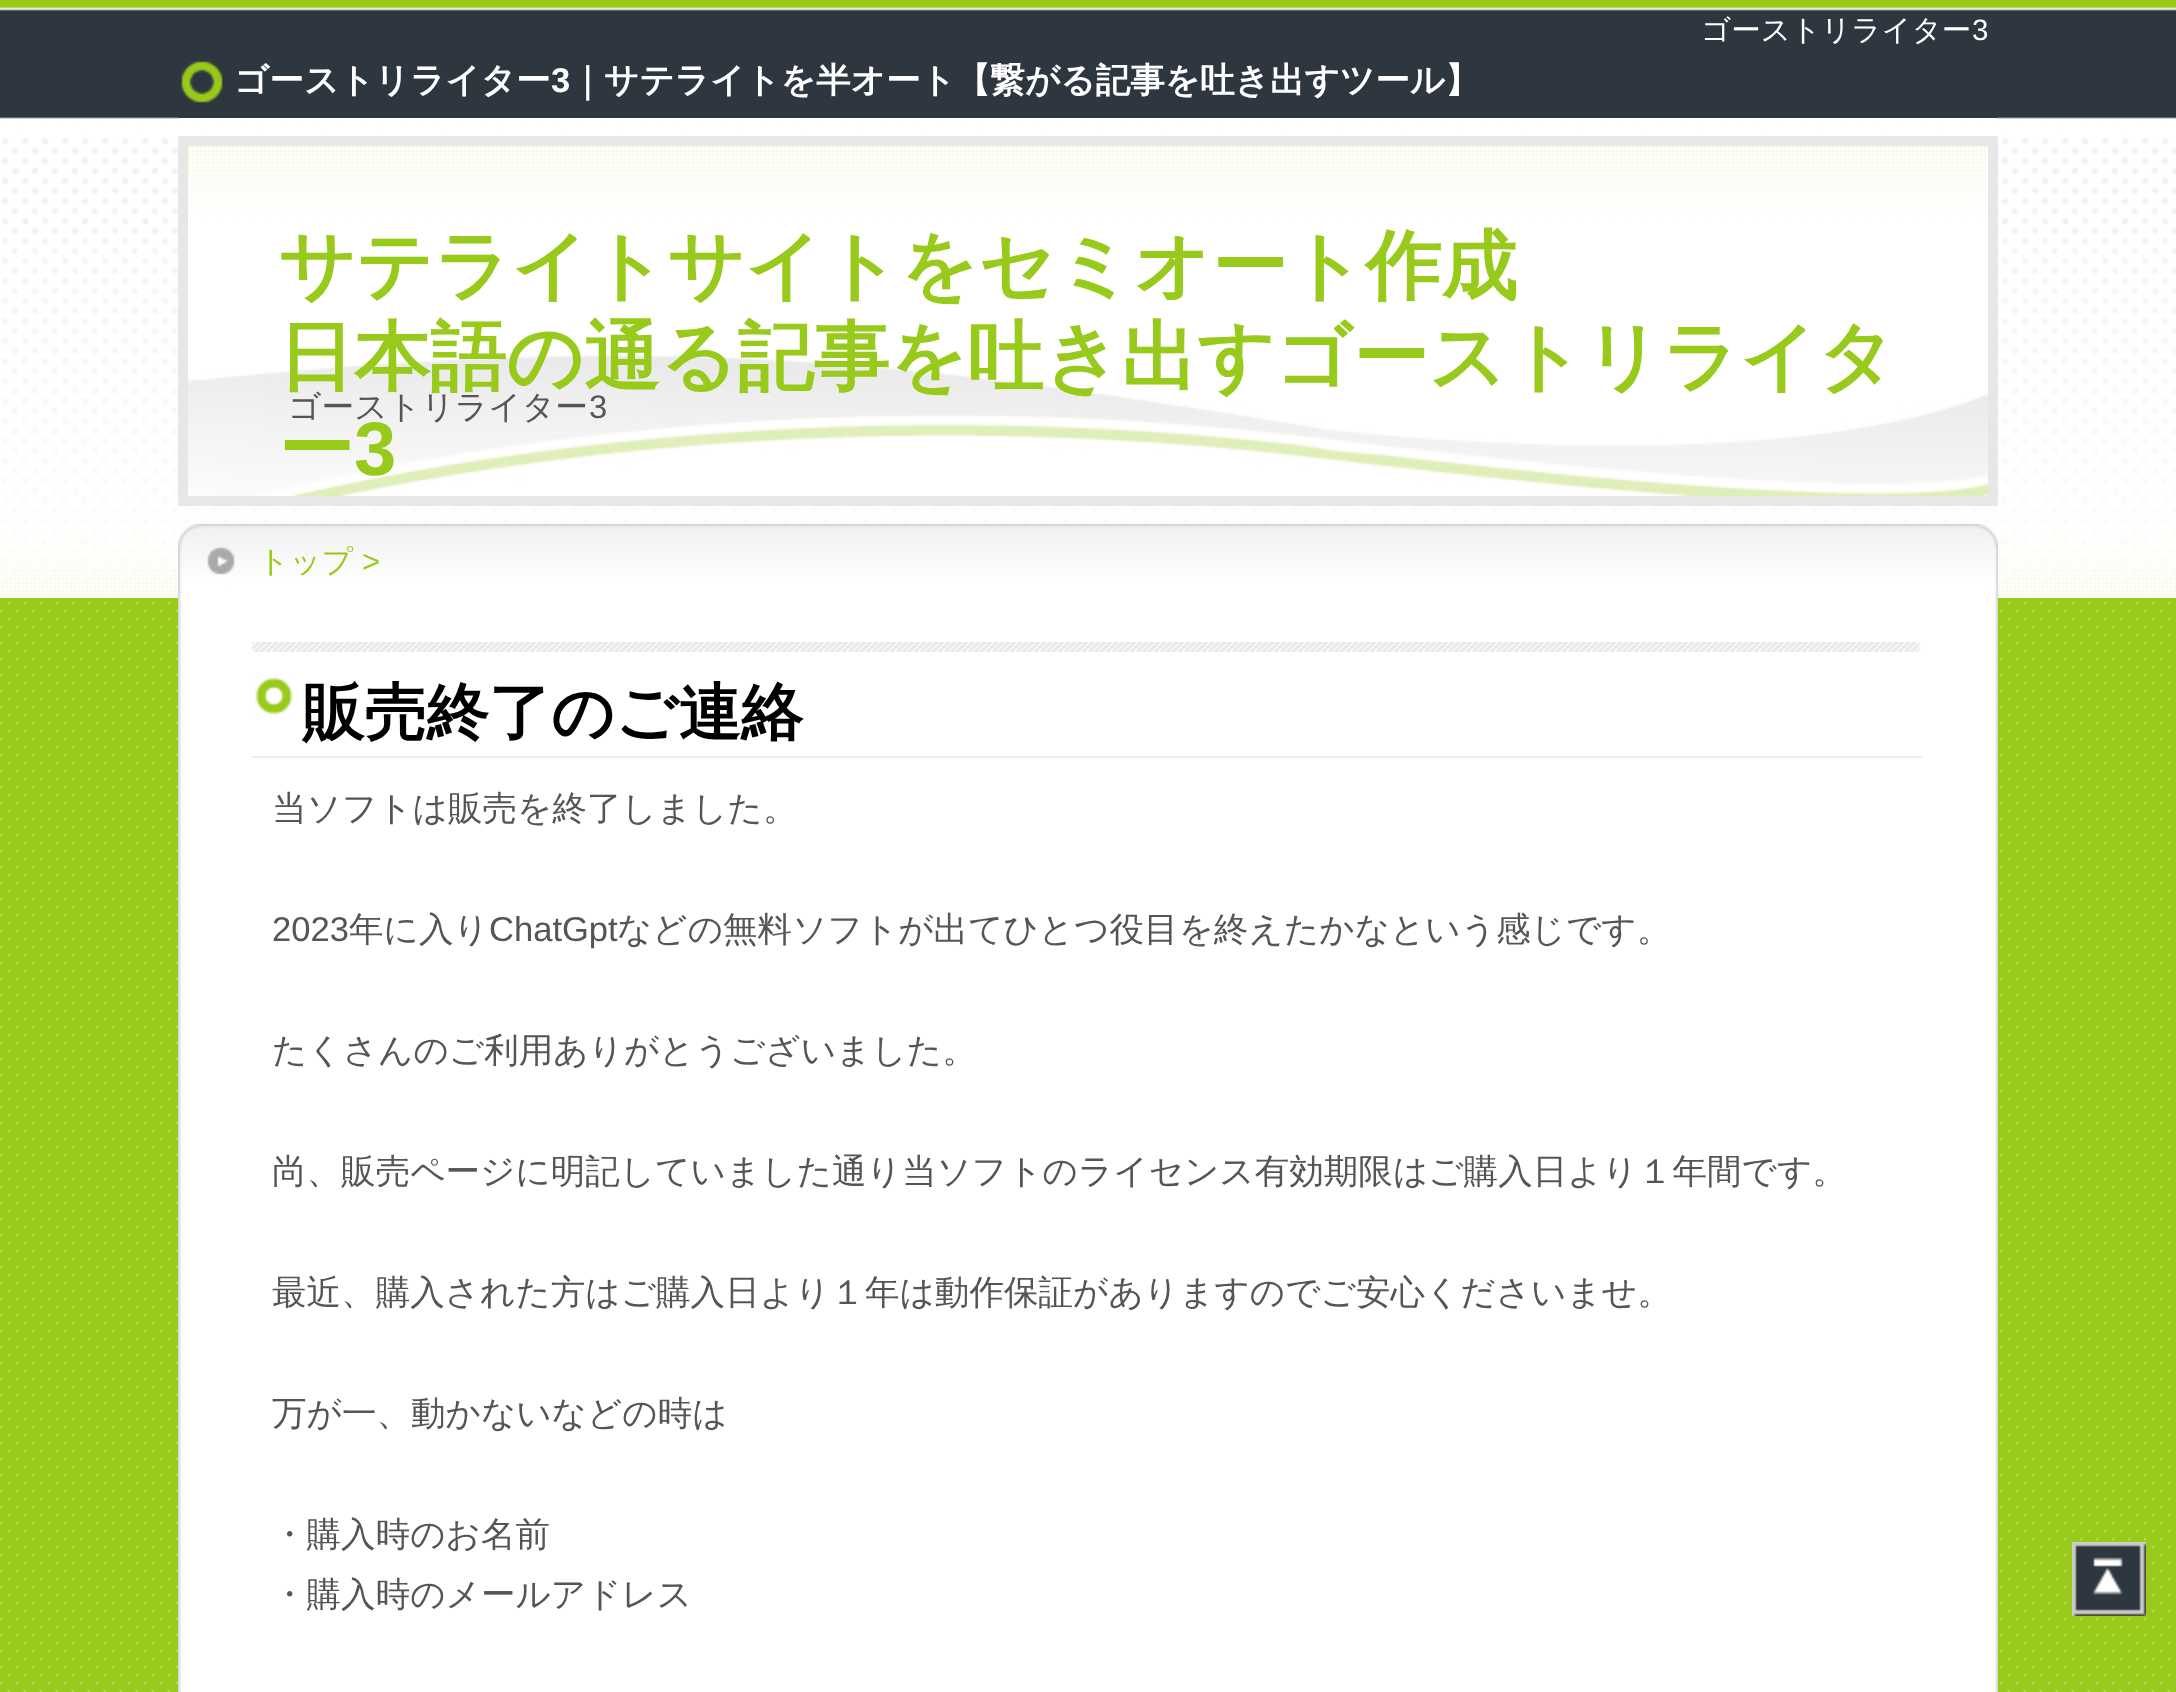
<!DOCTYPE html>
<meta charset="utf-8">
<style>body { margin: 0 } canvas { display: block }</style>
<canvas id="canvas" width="2176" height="1692"></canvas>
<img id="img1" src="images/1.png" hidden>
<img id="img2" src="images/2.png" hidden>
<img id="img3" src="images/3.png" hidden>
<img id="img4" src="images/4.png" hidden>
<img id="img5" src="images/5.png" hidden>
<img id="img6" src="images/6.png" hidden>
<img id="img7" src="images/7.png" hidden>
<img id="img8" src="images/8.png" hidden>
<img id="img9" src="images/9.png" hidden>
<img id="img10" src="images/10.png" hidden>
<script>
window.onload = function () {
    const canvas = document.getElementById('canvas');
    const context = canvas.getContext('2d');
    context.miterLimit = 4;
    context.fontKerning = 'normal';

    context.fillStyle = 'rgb(255, 255, 255)';
    context.fillRect(0, 0, 2176, 1692);
    context.drawImage(document.getElementById('img1'), 0, 0, 2176, 1692);
    context.drawImage(document.getElementById('img2'), 0, 1, 2176, 59);
    context.fillStyle = 'rgb(46, 55, 64)';
    context.fillRect(0, 60, 2176, 57);
    context.drawImage(document.getElementById('img3'), 0, 117, 2176, 481);
    context.fillRect(178, 117, 1820, 1);
    context.drawImage(document.getElementById('img4'), 181, 61, 42, 42);
    context.fillStyle = 'rgb(255, 255, 255)';
    context.fillRect(178, 118, 1820, 1);
    context.drawImage(document.getElementById('img5'), 188, 146, 1800, 350);
    context.strokeStyle = 'rgb(231, 231, 231)';
    context.lineWidth = 10;
    context.strokeRect(183, 141, 1810, 360);
    context.drawImage(document.getElementById('img6'), 178, 524, 1820, 74);
    context.drawImage(document.getElementById('img7'), 178, 598, 1820, 1094);
    context.drawImage(document.getElementById('img8'), 252, 642, 1669, 10);
    context.drawImage(document.getElementById('img9'), 255, 677, 38, 38);
    context.fillStyle = 'rgb(238, 238, 238)';
    context.fillRect(252, 756, 1670, 2);
    context.drawImage(document.getElementById('img10'), 2072, 1542, 74, 74);
    context.font = '500 29.5px WenQuanYi Zen Hei';
    context.fillStyle = 'rgb(255, 255, 255)';
    context.fillText('ゴーストリライター', 1701, 40);
    context.font = '29.5px Liberation Sans';
    context.fillText('3', 1972, 40);
    context.font = 'bold 34.55px WenQuanYi Zen Hei';
    context.fillText('ゴーストリライター', 234, 92);
    context.font = 'bold 34.55px Liberation Sans';
    context.fillText('3', 551, 92);
    context.font = 'bold 34.55px WenQuanYi Zen Hei';
    context.fillText('｜サテライトを半オート【繋がる記事を吐き出すツール】', 570, 92);
    context.font = 'bold 76px WenQuanYi Zen Hei';
    context.fillStyle = 'rgb(152, 202, 27)';
    context.fillText('サテライトサイトをセミオート作成', 278, 292);
    context.fillText('日本語の通る記事を吐き出すゴーストリライタ', 278, 383);
    context.fillText('ー', 278, 475);
    context.font = 'bold 76px Liberation Sans';
    context.fillText('3', 354, 475);
    context.font = '500 32.75px WenQuanYi Zen Hei';
    context.fillStyle = 'rgb(85, 85, 85)';
    context.fillText('ゴーストリライター', 288, 418);
    context.font = '32.75px Liberation Sans';
    context.fillText('3', 589, 418);
    context.font = '500 31px WenQuanYi Zen Hei';
    context.fillStyle = 'rgb(152, 202, 27)';
    context.fillText('トップ', 258, 572);
    context.font = '31px Liberation Sans';
    context.fillText('>', 362, 572);
    context.font = 'bold 62.25px WenQuanYi Zen Hei';
    context.fillStyle = 'rgb(0, 0, 0)';
    context.fillText('販売終了のご連絡', 302, 734);
    context.font = '500 34.55px WenQuanYi Zen Hei';
    context.fillStyle = 'rgb(85, 85, 85)';
    context.fillText('当ソフトは販売を終了しました。', 272, 820);
    context.font = '34.55px Liberation Sans';
    context.fillText('2023', 272, 941);
    context.font = '500 34.55px WenQuanYi Zen Hei';
    context.fillText('年に入り', 349, 941);
    context.font = '34.55px Liberation Sans';
    context.fillText('ChatGpt', 489, 941);
    context.font = '500 34.55px WenQuanYi Zen Hei';
    context.fillText('などの無料ソフトが出てひとつ役目を終えたかなという感じです。', 617, 941);
    context.fillText('たくさんのご利用ありがとうございました。', 272, 1062);
    context.fillText('尚、販売ページに明記していました通り当ソフトのライセンス有効期限はご購入日より１年間です。', 272, 1183);
    context.fillText('最近、購入された方はご購入日より１年は動作保証がありますのでご安心くださいませ。', 272, 1304);
    context.fillText('万が一、動かないなどの時は', 272, 1425);
    context.fillText('・購入時のお名前', 272, 1546);
    context.fillText('・購入時のメールアドレス', 272, 1606);
};
</script>
